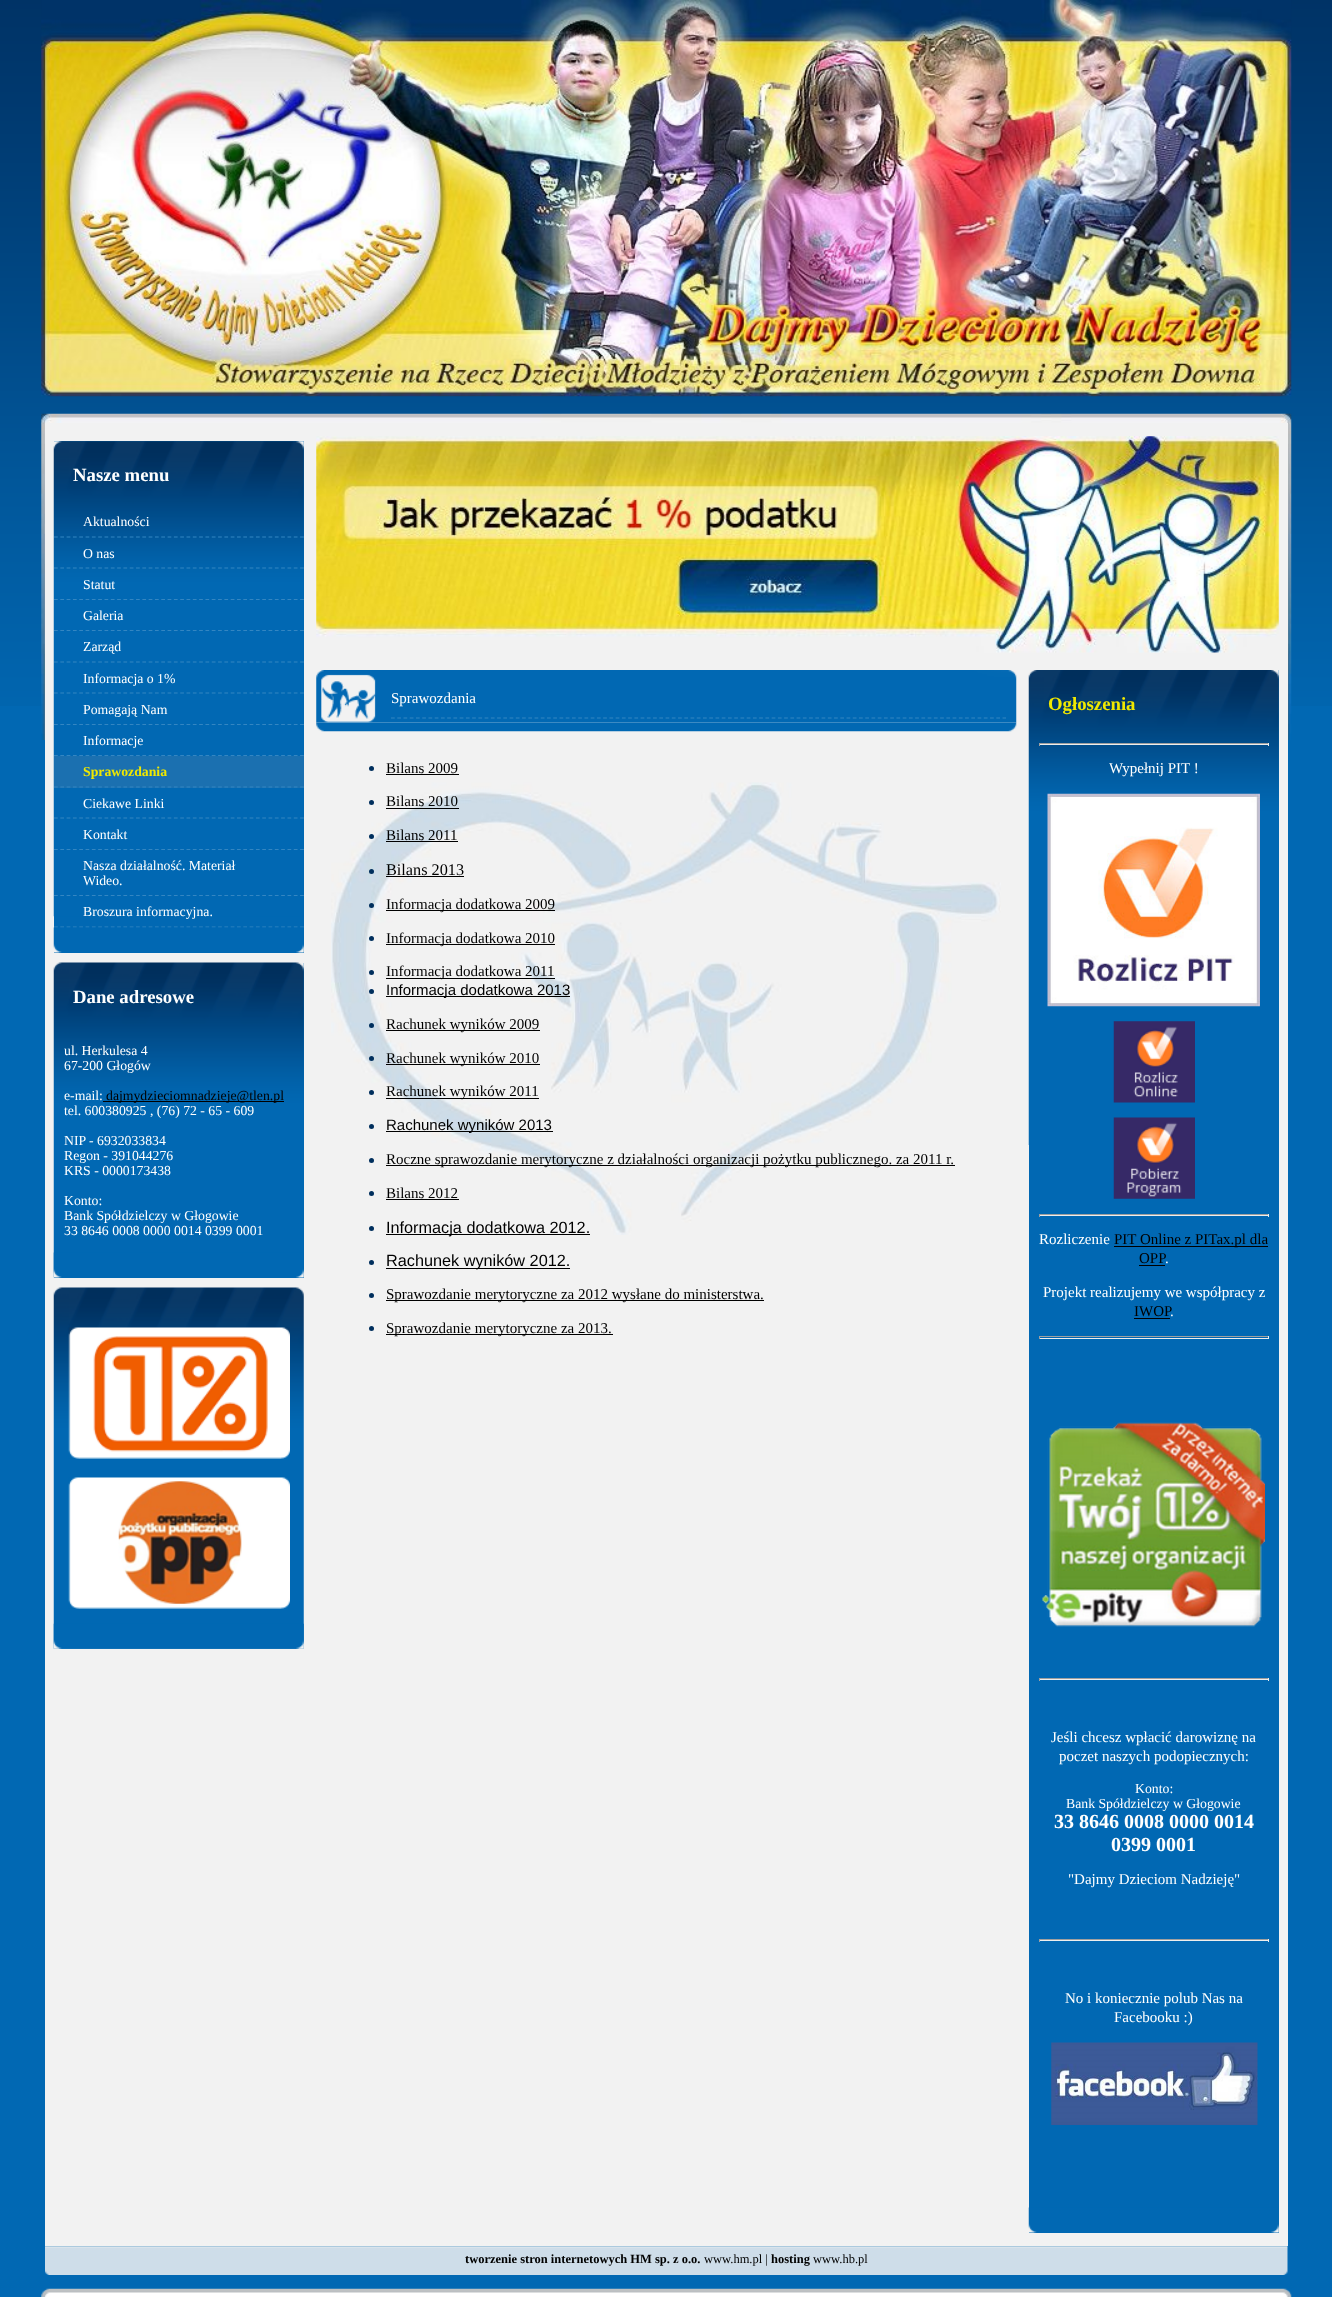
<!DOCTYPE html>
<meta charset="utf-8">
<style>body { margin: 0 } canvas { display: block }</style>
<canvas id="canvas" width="1332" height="2297"></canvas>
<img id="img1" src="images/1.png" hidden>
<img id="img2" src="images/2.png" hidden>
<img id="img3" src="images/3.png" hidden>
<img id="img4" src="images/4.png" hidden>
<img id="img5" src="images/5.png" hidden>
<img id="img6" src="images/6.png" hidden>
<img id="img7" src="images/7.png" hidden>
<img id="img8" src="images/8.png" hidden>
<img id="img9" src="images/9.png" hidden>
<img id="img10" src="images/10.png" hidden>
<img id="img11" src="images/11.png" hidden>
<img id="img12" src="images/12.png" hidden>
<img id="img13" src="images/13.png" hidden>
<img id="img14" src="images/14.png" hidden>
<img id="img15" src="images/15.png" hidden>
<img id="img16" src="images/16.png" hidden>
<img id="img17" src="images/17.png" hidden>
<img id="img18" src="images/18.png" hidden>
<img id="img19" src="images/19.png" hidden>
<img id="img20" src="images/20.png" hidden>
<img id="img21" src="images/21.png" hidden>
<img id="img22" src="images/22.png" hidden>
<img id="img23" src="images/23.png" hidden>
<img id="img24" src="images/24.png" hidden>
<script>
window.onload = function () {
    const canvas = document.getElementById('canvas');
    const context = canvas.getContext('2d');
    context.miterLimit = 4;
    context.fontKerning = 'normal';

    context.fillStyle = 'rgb(1, 104, 179)';
    context.fillRect(0, 0, 1332, 2297);
    context.drawImage(document.getElementById('img1'), 0, 0, 1332, 706);
    context.drawImage(document.getElementById('img2'), 41, 0, 1251, 397);
    context.drawImage(document.getElementById('img3'), 41, 413, 1251, 327);
    context.fillStyle = 'rgb(242, 242, 242)';
    context.fillRect(45, 423, 1243, 1823);
    context.drawImage(document.getElementById('img4'), 331, 782, 670, 453);
    context.fillStyle = 'rgb(1, 104, 179)';
    context.fillRect(54, 441, 250, 512);
    context.drawImage(document.getElementById('img5'), 53, 441, 251, 476);
    context.beginPath();
    context.moveTo(54, 537);
    context.lineTo(304, 537);
    context.strokeStyle = 'rgb(52, 134, 194)';
    context.lineWidth = 1.2;
    context.setLineDash([3.75, 2.56]);
    context.stroke();
    context.beginPath();
    context.moveTo(54, 568);
    context.lineTo(304, 568);
    context.stroke();
    context.beginPath();
    context.moveTo(54, 599.5);
    context.lineTo(304, 599.5);
    context.stroke();
    context.beginPath();
    context.moveTo(54, 630.5);
    context.lineTo(304, 630.5);
    context.stroke();
    context.beginPath();
    context.moveTo(54, 662);
    context.lineTo(304, 662);
    context.stroke();
    context.beginPath();
    context.moveTo(54, 693);
    context.lineTo(304, 693);
    context.stroke();
    context.beginPath();
    context.moveTo(54, 724.5);
    context.lineTo(304, 724.5);
    context.stroke();
    context.beginPath();
    context.moveTo(54, 755.5);
    context.lineTo(304, 755.5);
    context.stroke();
    context.fillStyle = 'rgb(27, 112, 176)';
    context.fillRect(54, 756, 250, 32);
    context.beginPath();
    context.moveTo(54, 787);
    context.lineTo(304, 787);
    context.stroke();
    context.beginPath();
    context.moveTo(54, 818);
    context.lineTo(304, 818);
    context.stroke();
    context.beginPath();
    context.moveTo(54, 849.5);
    context.lineTo(304, 849.5);
    context.stroke();
    context.beginPath();
    context.moveTo(54, 895.5);
    context.lineTo(304, 895.5);
    context.stroke();
    context.beginPath();
    context.moveTo(54, 927);
    context.lineTo(304, 927);
    context.stroke();
    context.drawImage(document.getElementById('img6'), 53, 927, 251, 26);
    context.fillStyle = 'rgb(1, 104, 179)';
    context.fillRect(54, 963, 250, 315);
    context.drawImage(document.getElementById('img7'), 53, 962, 251, 316);
    context.fillStyle = 'rgb(0, 0, 0)';
    context.fillRect(103, 1101, 181, 1);
    context.drawImage(document.getElementById('img8'), 53, 1252, 251, 26);
    context.drawImage(document.getElementById('img9'), 53, 1287, 251, 362);
    context.drawImage(document.getElementById('img10'), 68, 1327, 222, 132);
    context.drawImage(document.getElementById('img11'), 68, 1477, 222, 132);
    context.drawImage(document.getElementById('img12'), 53, 1623, 251, 26);
    context.drawImage(document.getElementById('img13'), 316, 436, 963, 217);
    context.drawImage(document.getElementById('img14'), 316, 670, 701, 53);
    context.beginPath();
    context.moveTo(391, 718);
    context.lineTo(1006, 718);
    context.setLineDash([3.75, 2.49]);
    context.stroke();
    context.drawImage(document.getElementById('img15'), 316, 722, 701, 10);
    context.fillStyle = 'rgb(0, 47, 93)';
    context.beginPath();
    context.arc(371.5, 768.5, 2.5, 0, 2 * Math.PI);
    context.fill();
    context.fillStyle = 'rgb(0, 0, 0)';
    context.fillRect(386, 774, 73, 1);
    context.fillStyle = 'rgb(0, 47, 93)';
    context.beginPath();
    context.arc(371.5, 802.5, 2.5, 0, 2 * Math.PI);
    context.fill();
    context.fillStyle = 'rgb(0, 0, 0)';
    context.fillRect(386, 808, 73, 1);
    context.fillStyle = 'rgb(0, 47, 93)';
    context.beginPath();
    context.arc(371.5, 836.5, 2.5, 0, 2 * Math.PI);
    context.fill();
    context.fillStyle = 'rgb(0, 0, 0)';
    context.fillRect(386, 841, 72, 1);
    context.fillStyle = 'rgb(0, 47, 93)';
    context.beginPath();
    context.arc(371.5, 871.5, 2.5, 0, 2 * Math.PI);
    context.fill();
    context.fillStyle = 'rgb(0, 0, 0)';
    context.fillRect(386, 876, 78, 1);
    context.fillStyle = 'rgb(0, 47, 93)';
    context.beginPath();
    context.arc(371.5, 905.5, 2.5, 0, 2 * Math.PI);
    context.fill();
    context.fillStyle = 'rgb(0, 0, 0)';
    context.fillRect(386, 910, 169, 1);
    context.fillStyle = 'rgb(0, 47, 93)';
    context.beginPath();
    context.arc(371.5, 938.5, 2.5, 0, 2 * Math.PI);
    context.fill();
    context.fillStyle = 'rgb(0, 0, 0)';
    context.fillRect(386, 944, 169, 1);
    context.fillStyle = 'rgb(0, 47, 93)';
    context.beginPath();
    context.arc(371.5, 972.5, 2.5, 0, 2 * Math.PI);
    context.fill();
    context.fillStyle = 'rgb(0, 0, 0)';
    context.fillRect(386, 978, 169, 1);
    context.fillStyle = 'rgb(0, 47, 93)';
    context.beginPath();
    context.arc(371.5, 991.5, 2.5, 0, 2 * Math.PI);
    context.fill();
    context.fillStyle = 'rgb(0, 0, 0)';
    context.fillRect(386, 996, 184, 1);
    context.fillStyle = 'rgb(0, 47, 93)';
    context.beginPath();
    context.arc(371.5, 1025.5, 2.5, 0, 2 * Math.PI);
    context.fill();
    context.fillStyle = 'rgb(0, 0, 0)';
    context.fillRect(386, 1030, 154, 1);
    context.fillStyle = 'rgb(0, 47, 93)';
    context.beginPath();
    context.arc(371.5, 1058.5, 2.5, 0, 2 * Math.PI);
    context.fill();
    context.fillStyle = 'rgb(0, 0, 0)';
    context.fillRect(386, 1064, 154, 1);
    context.fillStyle = 'rgb(0, 47, 93)';
    context.beginPath();
    context.arc(371.5, 1092.5, 2.5, 0, 2 * Math.PI);
    context.fill();
    context.fillStyle = 'rgb(0, 0, 0)';
    context.fillRect(386, 1098, 153, 1);
    context.fillStyle = 'rgb(0, 47, 93)';
    context.beginPath();
    context.arc(371.5, 1126.5, 2.5, 0, 2 * Math.PI);
    context.fill();
    context.fillStyle = 'rgb(0, 0, 0)';
    context.fillRect(386, 1131, 167, 1);
    context.fillStyle = 'rgb(0, 47, 93)';
    context.beginPath();
    context.arc(371.5, 1160.5, 2.5, 0, 2 * Math.PI);
    context.fill();
    context.fillStyle = 'rgb(0, 0, 0)';
    context.fillRect(386, 1165, 569, 1);
    context.fillStyle = 'rgb(0, 47, 93)';
    context.beginPath();
    context.arc(371.5, 1193.5, 2.5, 0, 2 * Math.PI);
    context.fill();
    context.fillStyle = 'rgb(0, 0, 0)';
    context.fillRect(386, 1199, 73, 1);
    context.fillStyle = 'rgb(0, 47, 93)';
    context.beginPath();
    context.arc(371.5, 1228.5, 2.5, 0, 2 * Math.PI);
    context.fill();
    context.fillStyle = 'rgb(0, 0, 0)';
    context.fillRect(386, 1234, 204, 1);
    context.fillStyle = 'rgb(0, 47, 93)';
    context.beginPath();
    context.arc(371.5, 1262.5, 2.5, 0, 2 * Math.PI);
    context.fill();
    context.fillStyle = 'rgb(0, 0, 0)';
    context.fillRect(386, 1268, 184, 1);
    context.fillStyle = 'rgb(0, 47, 93)';
    context.beginPath();
    context.arc(371.5, 1295.5, 2.5, 0, 2 * Math.PI);
    context.fill();
    context.fillStyle = 'rgb(0, 0, 0)';
    context.fillRect(386, 1300, 378, 1);
    context.fillStyle = 'rgb(0, 47, 93)';
    context.beginPath();
    context.arc(371.5, 1328.5, 2.5, 0, 2 * Math.PI);
    context.fill();
    context.fillStyle = 'rgb(0, 0, 0)';
    context.fillRect(386, 1334, 227, 1);
    context.fillStyle = 'rgb(1, 104, 179)';
    context.fillRect(1029, 670, 250, 1563);
    context.drawImage(document.getElementById('img16'), 1028, 670, 251, 475);
    context.fillStyle = 'rgb(159, 159, 159)';
    context.fillRect(1039, 743, 230, 1);
    context.fillStyle = 'rgb(238, 238, 238)';
    context.fillRect(1268, 743, 1, 3);
    context.fillRect(1039, 744, 230, 1);
    context.fillStyle = 'rgb(159, 159, 159)';
    context.fillRect(1039, 743, 1, 3);
    context.drawImage(document.getElementById('img17'), 1047, 793, 213, 214);
    context.drawImage(document.getElementById('img18'), 1113, 1021, 82, 82);
    context.drawImage(document.getElementById('img19'), 1113, 1117, 82, 82);
    context.fillRect(1039, 1214, 230, 1);
    context.fillStyle = 'rgb(238, 238, 238)';
    context.fillRect(1268, 1214, 1, 3);
    context.fillRect(1039, 1215, 230, 1);
    context.fillStyle = 'rgb(159, 159, 159)';
    context.fillRect(1039, 1214, 1, 3);
    context.fillStyle = 'rgb(0, 0, 0)';
    context.fillRect(1114, 1246, 154, 1);
    context.fillRect(1139, 1265, 26, 1);
    context.fillRect(1134, 1318, 36, 1);
    context.fillStyle = 'rgb(159, 159, 159)';
    context.fillRect(1039, 1336, 230, 1);
    context.fillStyle = 'rgb(238, 238, 238)';
    context.fillRect(1268, 1336, 1, 3);
    context.fillRect(1039, 1338, 230, 1);
    context.fillStyle = 'rgb(159, 159, 159)';
    context.fillRect(1039, 1336, 1, 3);
    context.drawImage(document.getElementById('img20'), 1042, 1422, 223, 205);
    context.fillRect(1039, 1678, 230, 1);
    context.fillStyle = 'rgb(238, 238, 238)';
    context.fillRect(1268, 1678, 1, 3);
    context.fillRect(1039, 1679, 230, 1);
    context.fillStyle = 'rgb(159, 159, 159)';
    context.fillRect(1039, 1678, 1, 3);
    context.fillRect(1039, 1939, 230, 1);
    context.fillStyle = 'rgb(238, 238, 238)';
    context.fillRect(1268, 1939, 1, 3);
    context.fillRect(1039, 1940, 230, 1);
    context.fillStyle = 'rgb(159, 159, 159)';
    context.fillRect(1039, 1939, 1, 3);
    context.drawImage(document.getElementById('img21'), 1051, 2042, 207, 83);
    context.drawImage(document.getElementById('img22'), 1028, 2207, 251, 26);
    context.drawImage(document.getElementById('img23'), 45, 2246, 1243, 29);
    context.drawImage(document.getElementById('img24'), 41, 2288, 1251, 9);
    context.font = 'bold 18.75px Liberation Serif';
    context.fillStyle = 'rgb(255, 255, 255)';
    context.fillText('Nasze menu', 73, 481);
    context.font = '13.75px Liberation Serif';
    context.fillText('Aktualności', 83, 526);
    context.fillText('O nas', 83, 558);
    context.fillText('Statut', 83, 589);
    context.fillText('Galeria', 83, 620);
    context.fillText('Zarząd', 83, 651);
    context.fillText('Informacja o 1%', 83, 683);
    context.fillText('Pomagają Nam', 83, 714);
    context.fillText('Informacje', 83, 745);
    context.font = 'bold 13.75px Liberation Serif';
    context.fillStyle = 'rgb(240, 232, 0)';
    context.fillText('Sprawozdania', 83, 776);
    context.font = '13.75px Liberation Serif';
    context.fillStyle = 'rgb(255, 255, 255)';
    context.fillText('Ciekawe Linki', 83, 808);
    context.fillText('Kontakt', 83, 839);
    context.fillText('Nasza działalność. Materiał', 83, 870);
    context.fillText('Wideo.', 83, 885);
    context.fillText('Broszura informacyjna.', 83, 916);
    context.font = 'bold 18.75px Liberation Serif';
    context.fillText('Dane adresowe', 73, 1003);
    context.font = '13.75px Liberation Serif';
    context.fillText('ul. Herkulesa 4', 64, 1055);
    context.fillText('67-200 Głogów', 64, 1070);
    context.fillText('e-mail:', 64, 1100);
    context.fillStyle = 'rgb(0, 0, 0)';
    context.fillText('dajmydzieciomnadzieje@tlen.pl', 106, 1100);
    context.fillStyle = 'rgb(255, 255, 255)';
    context.fillText('tel. 600380925 , (76) 72 - 65 - 609', 64, 1115);
    context.fillText('NIP - 6932033834', 64, 1145);
    context.fillText('Regon - 391044276', 64, 1160);
    context.fillText('KRS - 0000173438', 64, 1175);
    context.fillText('Konto:', 64, 1205);
    context.fillText('Bank Spółdzielczy w Głogowie', 64, 1220);
    context.fillText('33 8646 0008 0000 0014 0399 0001', 64, 1235);
    context.font = '15px Liberation Serif';
    context.fillText('Sprawozdania', 391, 703);
    context.fillStyle = 'rgb(0, 0, 0)';
    context.fillText('Bilans 2009', 386, 773);
    context.fillText('Bilans 2010', 386, 806);
    context.fillText('Bilans 2011', 386, 840);
    context.font = '16.25px Liberation Serif';
    context.fillText('Bilans 2013', 386, 875);
    context.font = '15px Liberation Serif';
    context.fillText('Informacja dodatkowa 2009', 386, 909);
    context.fillText('Informacja dodatkowa 2010', 386, 943);
    context.fillText('Informacja dodatkowa 2011', 386, 976);
    context.font = '15px Liberation Sans';
    context.fillText('Informacja dodatkowa 2013', 386, 995);
    context.font = '15px Liberation Serif';
    context.fillText('Rachunek wyników 2009', 386, 1029);
    context.fillText('Rachunek wyników 2010', 386, 1063);
    context.fillText('Rachunek wyników 2011', 386, 1096);
    context.font = '15px Liberation Sans';
    context.fillText('Rachunek wyników 2013', 386, 1130);
    context.font = '15px Liberation Serif';
    context.fillText('Roczne sprawozdanie merytoryczne z działalności organizacji pożytku publicznego. za 2011 r.', 386, 1164);
    context.fillText('Bilans 2012', 386, 1198);
    context.font = '16.25px Liberation Sans';
    context.fillText('Informacja dodatkowa 2012.', 386, 1233);
    context.fillText('Rachunek wyników 2012.', 386, 1266);
    context.font = '15px Liberation Serif';
    context.fillText('Sprawozdanie merytoryczne za 2012 wysłane do ministerstwa.', 386, 1299);
    context.fillText('Sprawozdanie merytoryczne za 2013.', 386, 1333);
    context.font = 'bold 18.75px Liberation Serif';
    context.fillStyle = 'rgb(240, 232, 0)';
    context.fillText('Ogłoszenia', 1048, 710);
    context.font = '15px Liberation Serif';
    context.fillStyle = 'rgb(255, 255, 255)';
    context.fillText('Wypełnij PIT !', 1109, 773);
    context.fillText('Rozliczenie', 1039, 1244);
    context.fillStyle = 'rgb(0, 0, 0)';
    context.fillText('PIT Online z PITax.pl dla', 1114, 1244);
    context.fillText('OPP', 1139, 1263);
    context.fillStyle = 'rgb(255, 255, 255)';
    context.fillText('.', 1165, 1263);
    context.fillText('Projekt realizujemy we współpracy z', 1043, 1297);
    context.fillStyle = 'rgb(0, 0, 0)';
    context.fillText('IWOP', 1134, 1316);
    context.fillStyle = 'rgb(255, 255, 255)';
    context.fillText('.', 1170, 1316);
    context.fillText('Jeśli chcesz wpłacić darowiznę na', 1051, 1742);
    context.fillText('poczet naszych podopiecznych:', 1059, 1761);
    context.font = '13.75px Liberation Serif';
    context.fillText('Konto:', 1135, 1793);
    context.fillText('Bank Spółdzielczy w Głogowie', 1066, 1808);
    context.font = 'bold 20px Liberation Serif';
    context.fillText('33 8646 0008 0000 0014', 1054, 1828);
    context.fillText('0399 0001', 1111, 1851);
    context.font = '15px Liberation Serif';
    context.fillText('"Dajmy Dzieciom Nadzieję"', 1068, 1884);
    context.fillText('No i koniecznie polub Nas na', 1065, 2003);
    context.fillText('Facebooku :)', 1114, 2022);
    context.font = 'bold 12.5px Liberation Serif';
    context.fillStyle = 'rgb(0, 0, 0)';
    context.fillText('tworzenie stron internetowych HM sp. z o.o.', 465, 2263);
    context.font = '12.5px Liberation Serif';
    context.fillText('www.hm.pl |', 704, 2263);
    context.font = 'bold 12.5px Liberation Serif';
    context.fillText('hosting', 771, 2263);
    context.font = '12.5px Liberation Serif';
    context.fillText('www.hb.pl', 813, 2263);
};
</script>
